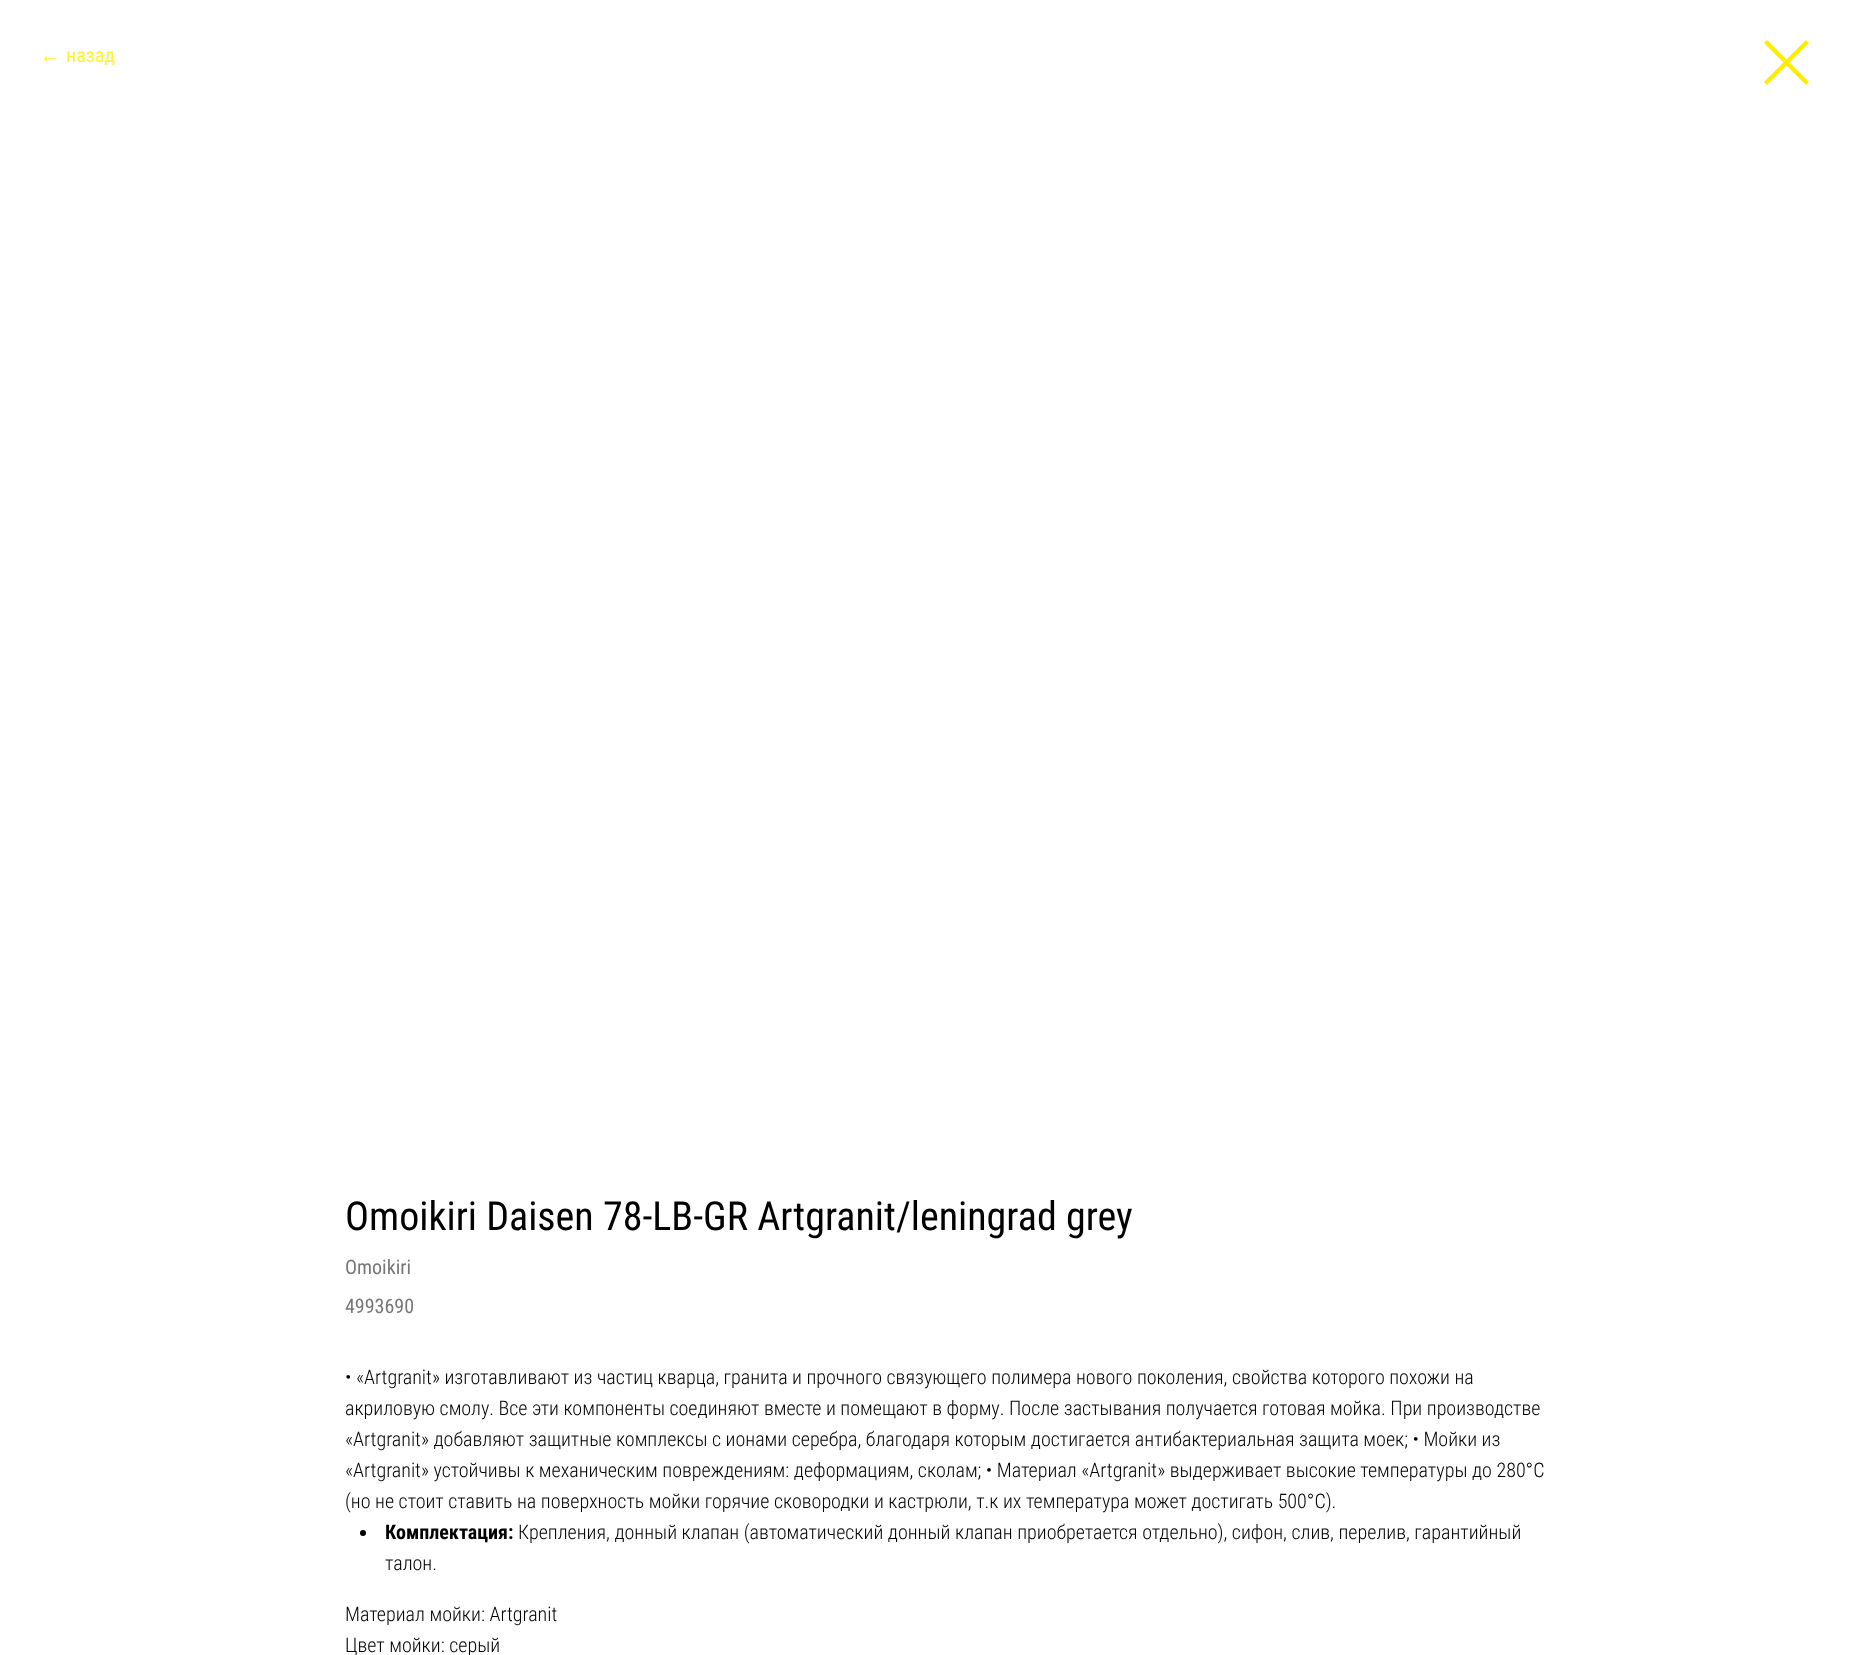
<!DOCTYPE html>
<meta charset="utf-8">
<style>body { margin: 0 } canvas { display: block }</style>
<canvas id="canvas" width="1850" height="1655"></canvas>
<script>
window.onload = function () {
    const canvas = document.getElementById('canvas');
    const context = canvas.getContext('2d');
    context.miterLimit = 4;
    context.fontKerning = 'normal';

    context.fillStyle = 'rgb(255, 255, 255)';
    context.fillRect(0, 0, 1850, 1655);
    context.fillStyle = 'rgb(255, 237, 0)';
    context.beginPath();
    context.moveTo(1764, 43);
    context.lineTo(1767, 40);
    context.lineTo(1809, 82);
    context.lineTo(1806, 85);
    context.closePath();
    context.fill('evenodd');
    context.beginPath();
    context.moveTo(1806, 40);
    context.lineTo(1809, 43);
    context.lineTo(1767, 85);
    context.lineTo(1764, 82);
    context.closePath();
    context.fill('evenodd');
    context.fillStyle = 'rgb(0, 0, 0)';
    context.beginPath();
    context.arc(363, 1533, 3, 0, 2 * Math.PI);
    context.fill();
    context.font = '20px Liberation Sans';
    context.fillStyle = 'rgb(255, 241, 51)';
    context.fillText('←', 40, 62);
    context.font = '20px Roboto Condensed';
    context.fillText('назад', 66, 62);
    context.font = '40px Roboto Condensed';
    context.fillStyle = 'rgb(0, 0, 0)';
    context.fillText('Omoikiri Daisen 78-LB-GR Artgranit/leningrad grey', 345, 1230);
    context.font = '20px Roboto Condensed';
    context.fillStyle = 'rgb(119, 119, 119)';
    context.fillText('Omoikiri', 345, 1274);
    context.fillText('4993690', 345, 1313);
    context.font = '300 20px Roboto Condensed';
    context.fillStyle = 'rgb(0, 0, 0)';
    context.fillText('• «Artgranit» изготавливают из частиц кварца, гранита и прочного связующего полимера нового поколения, свойства которого похожи на', 345, 1384);
    context.fillText('акриловую смолу. Все эти компоненты соединяют вместе и помещают в форму. После застывания получается готовая мойка. При производстве', 345, 1415);
    context.fillText('«Artgranit» добавляют защитные комплексы с ионами серебра, благодаря которым достигается антибактериальная защита моек; • Мойки из', 345, 1446);
    context.fillText('«Artgranit» устойчивы к механическим повреждениям: деформациям, сколам; • Материал «Artgranit» выдерживает высокие температуры до 280°С', 345, 1477);
    context.fillText('(но не стоит ставить на поверхность мойки горячие сковородки и кастрюли, т.к их температура может достигать 500°С).', 345, 1508);
    context.font = 'bold 20px Roboto Condensed';
    context.fillText('Комплектация:', 385, 1539);
    context.font = '300 20px Roboto Condensed';
    context.fillText('Крепления, донный клапан (автоматический донный клапан приобретается отдельно), сифон, слив, перелив, гарантийный', 518, 1539);
    context.fillText('талон.', 385, 1570);
    context.fillText('Материал мойки: Artgranit', 345, 1621);
    context.fillText('Цвет мойки: серый', 345, 1652);
};
</script>
